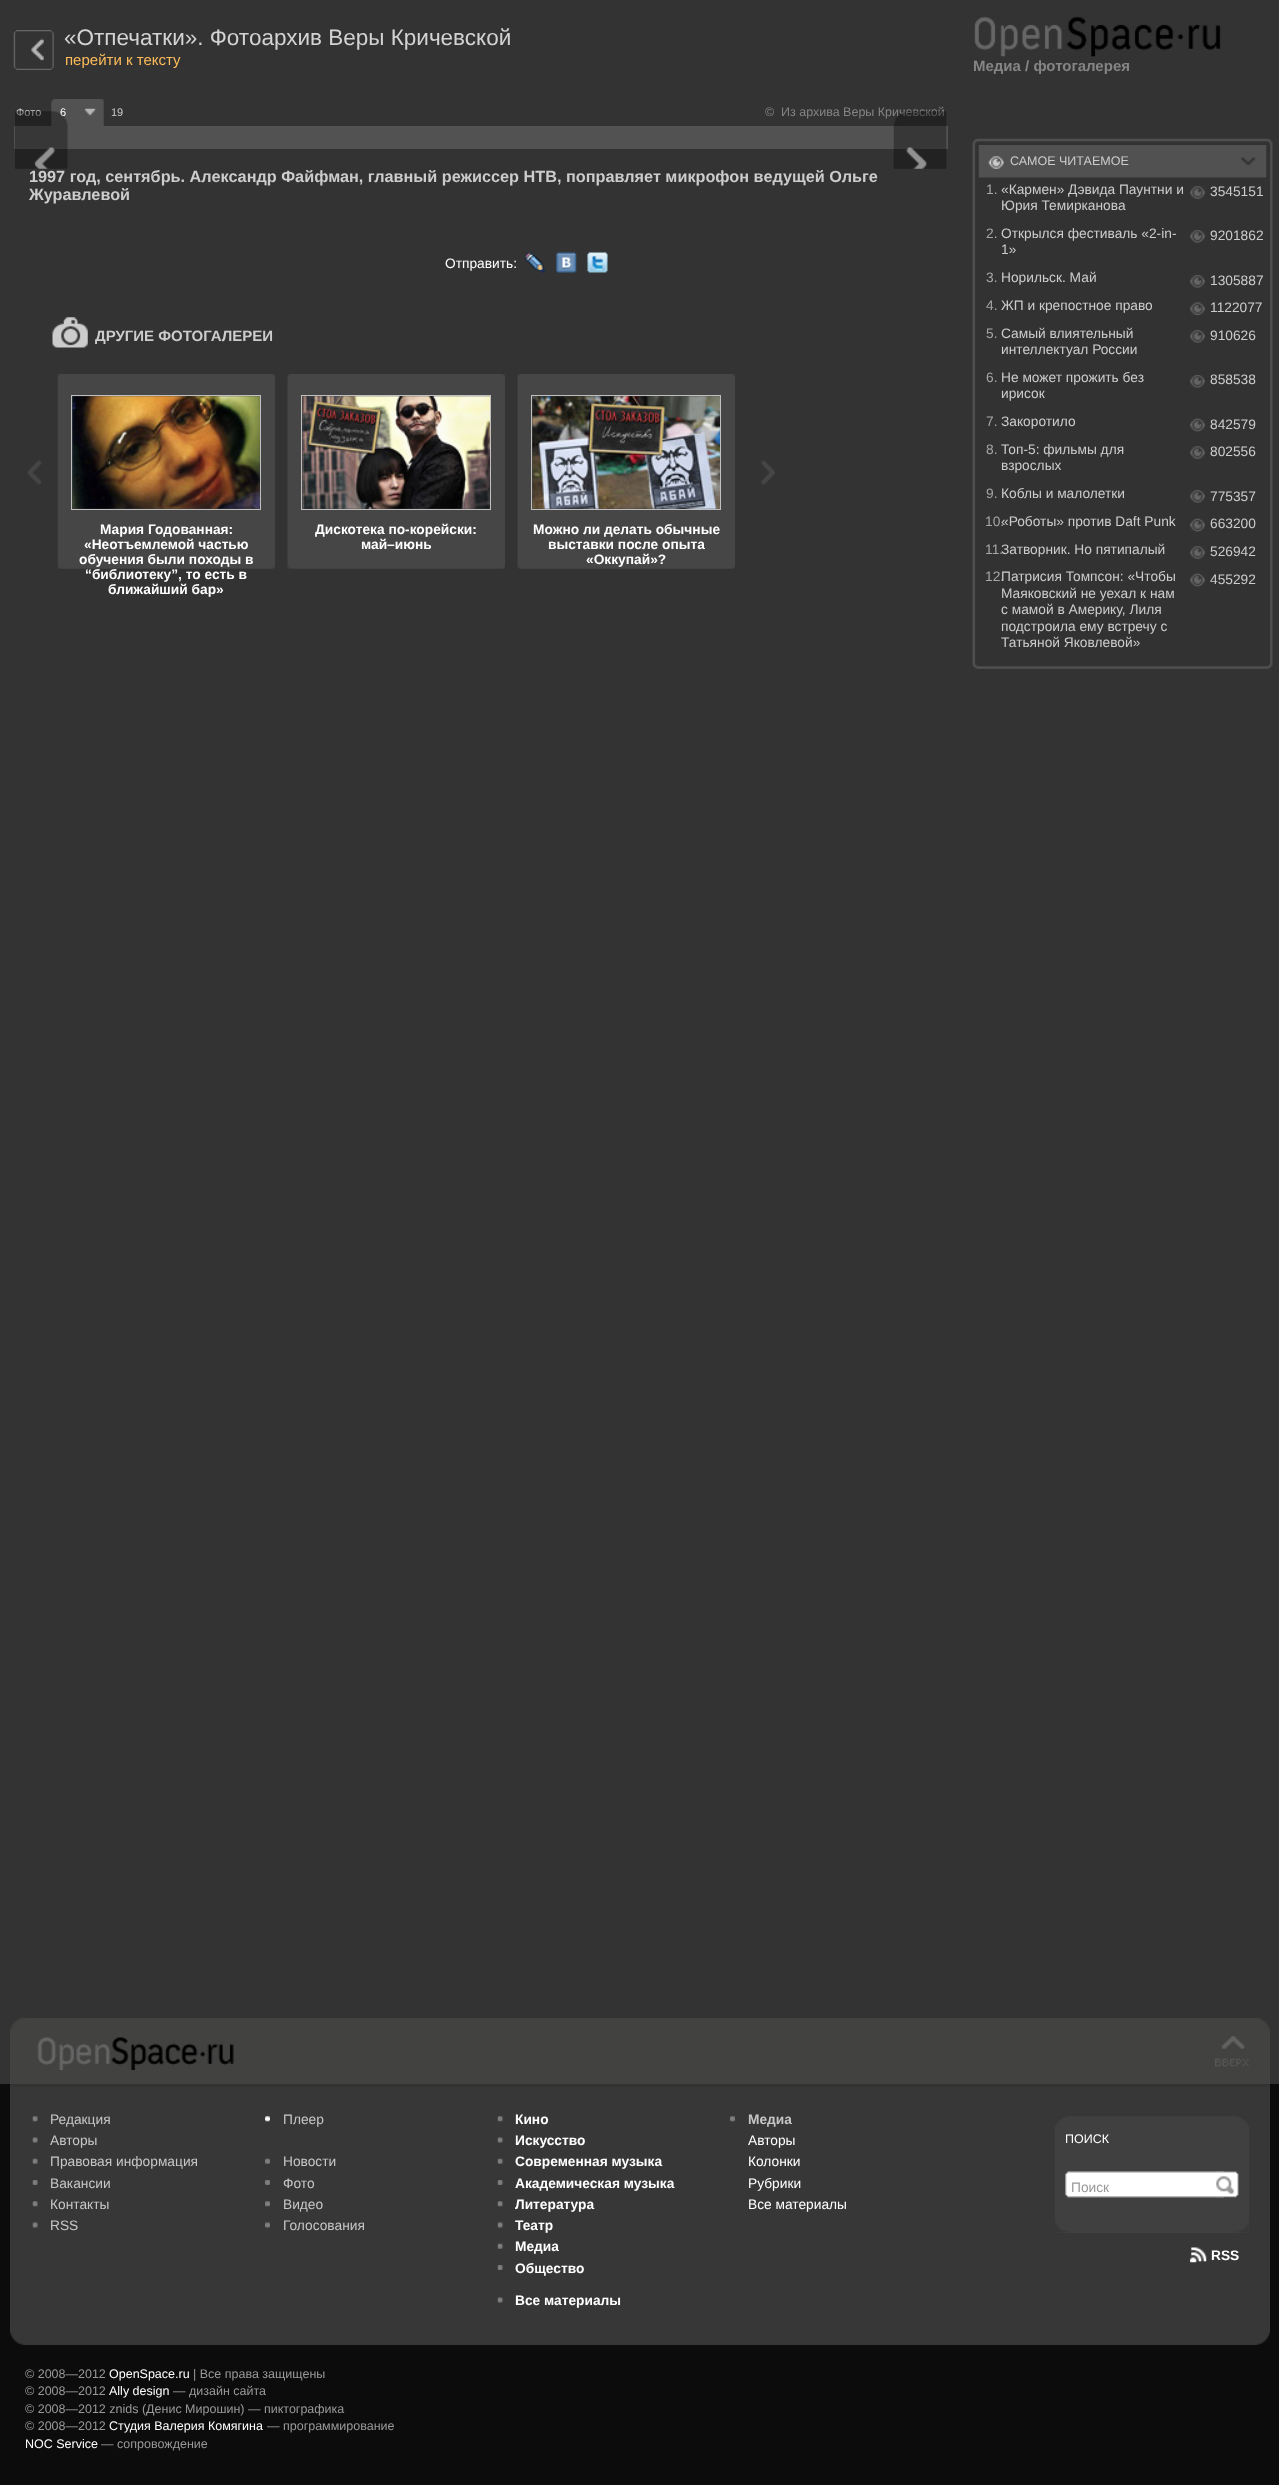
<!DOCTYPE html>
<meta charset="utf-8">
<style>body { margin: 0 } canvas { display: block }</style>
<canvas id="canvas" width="1279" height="2485"></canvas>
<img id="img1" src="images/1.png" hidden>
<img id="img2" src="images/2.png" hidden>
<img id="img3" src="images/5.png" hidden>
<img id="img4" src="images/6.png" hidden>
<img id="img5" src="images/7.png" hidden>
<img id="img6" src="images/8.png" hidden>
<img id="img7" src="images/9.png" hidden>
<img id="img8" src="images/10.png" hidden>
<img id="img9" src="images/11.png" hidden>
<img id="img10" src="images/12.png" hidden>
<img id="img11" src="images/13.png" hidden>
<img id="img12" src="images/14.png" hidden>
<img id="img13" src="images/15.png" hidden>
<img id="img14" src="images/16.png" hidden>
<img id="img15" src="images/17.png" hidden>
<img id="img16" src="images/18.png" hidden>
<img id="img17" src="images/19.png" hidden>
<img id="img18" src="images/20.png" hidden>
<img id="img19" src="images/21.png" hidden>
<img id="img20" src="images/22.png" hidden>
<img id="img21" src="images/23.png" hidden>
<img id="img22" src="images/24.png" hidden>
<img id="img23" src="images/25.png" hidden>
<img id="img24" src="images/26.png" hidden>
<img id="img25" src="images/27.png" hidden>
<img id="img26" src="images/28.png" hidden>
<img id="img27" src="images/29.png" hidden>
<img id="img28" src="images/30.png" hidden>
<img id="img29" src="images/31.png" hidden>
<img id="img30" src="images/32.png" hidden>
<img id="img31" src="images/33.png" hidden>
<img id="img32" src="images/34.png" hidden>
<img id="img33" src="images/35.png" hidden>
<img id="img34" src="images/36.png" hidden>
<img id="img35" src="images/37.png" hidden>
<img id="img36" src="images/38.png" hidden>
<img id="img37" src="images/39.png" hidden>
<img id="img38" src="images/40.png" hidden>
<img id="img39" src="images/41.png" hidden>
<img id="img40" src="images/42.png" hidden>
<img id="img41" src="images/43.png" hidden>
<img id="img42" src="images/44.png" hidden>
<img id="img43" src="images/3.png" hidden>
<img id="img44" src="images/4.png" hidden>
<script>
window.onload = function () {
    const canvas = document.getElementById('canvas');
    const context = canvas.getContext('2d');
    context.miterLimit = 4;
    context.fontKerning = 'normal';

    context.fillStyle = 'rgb(51, 51, 51)';
    context.fillRect(0, 0, 1279, 2485);
    context.drawImage(document.getElementById('img1'), 13, 30, 41, 40);
    context.drawImage(document.getElementById('img2'), 51, 99, 53, 27);
    context.fillStyle = 'rgb(82, 82, 82)';
    context.fillRect(14, 126, 934, 23);
    context.drawImage(document.getElementById('img3'), 525, 252, 20, 21);
    context.drawImage(document.getElementById('img4'), 556, 252, 21, 21);
    context.drawImage(document.getElementById('img5'), 587, 252, 21, 21);
    context.drawImage(document.getElementById('img6'), 52, 317, 36, 31);
    context.drawImage(document.getElementById('img7'), 65, 317, 23, 29);
    context.drawImage(document.getElementById('img8'), 27, 460, 15, 25);
    context.drawImage(document.getElementById('img9'), 761, 460, 14, 25);
    context.drawImage(document.getElementById('img10'), 57, 374, 218, 195);
    context.strokeStyle = 'rgb(191, 191, 191)';
    context.strokeRect(71.5, 395.5, 189, 114);
    context.drawImage(document.getElementById('img11'), 72, 396, 188, 113);
    context.drawImage(document.getElementById('img12'), 287, 374, 218, 195);
    context.strokeRect(301.5, 395.5, 189, 114);
    context.drawImage(document.getElementById('img13'), 302, 396, 188, 113);
    context.drawImage(document.getElementById('img12'), 517, 374, 218, 195);
    context.strokeRect(531.5, 395.5, 189, 114);
    context.drawImage(document.getElementById('img14'), 532, 396, 188, 113);
    context.drawImage(document.getElementById('img15'), 974, 16, 247, 41);
    context.drawImage(document.getElementById('img16'), 972, 138, 301, 7);
    context.drawImage(document.getElementById('img17'), 972, 145, 301, 524);
    context.drawImage(document.getElementById('img18'), 978, 145, 289, 33);
    context.drawImage(document.getElementById('img19'), 1190, 186, 15, 13);
    context.drawImage(document.getElementById('img20'), 1190, 230, 15, 13);
    context.drawImage(document.getElementById('img20'), 1190, 275, 15, 13);
    context.drawImage(document.getElementById('img21'), 1190, 302, 15, 13);
    context.drawImage(document.getElementById('img20'), 1190, 330, 15, 13);
    context.drawImage(document.getElementById('img20'), 1190, 375, 15, 13);
    context.drawImage(document.getElementById('img22'), 1190, 418, 15, 14);
    context.drawImage(document.getElementById('img19'), 1190, 446, 15, 13);
    context.drawImage(document.getElementById('img20'), 1190, 490, 15, 13);
    context.drawImage(document.getElementById('img22'), 1190, 518, 15, 14);
    context.drawImage(document.getElementById('img19'), 1190, 546, 15, 13);
    context.drawImage(document.getElementById('img22'), 1190, 573, 15, 14);
    context.fillStyle = 'rgb(66, 66, 65)';
    context.fillRect(10, 2018, 1260, 66);
    context.drawImage(document.getElementById('img23'), 10, 2017, 15, 13);
    context.drawImage(document.getElementById('img24'), 1258, 2018, 12, 12);
    context.drawImage(document.getElementById('img25'), 37, 2037, 197, 33);
    context.drawImage(document.getElementById('img26'), 1215, 2036, 34, 31);
    context.fillStyle = 'rgb(12, 12, 12)';
    context.fillRect(0, 2345, 1279, 140);
    context.fillStyle = 'rgb(55, 55, 55)';
    context.fillRect(10, 2087, 1260, 258);
    context.drawImage(document.getElementById('img27'), 1256, 2332, 14, 13);
    context.fillStyle = 'rgb(12, 12, 12)';
    context.fillRect(1270, 2084, 9, 261);
    context.fillRect(0, 2084, 10, 261);
    context.drawImage(document.getElementById('img28'), 10, 2332, 14, 13);
    context.drawImage(document.getElementById('img29'), 32, 2116, 6, 6);
    context.drawImage(document.getElementById('img30'), 32, 2137, 6, 6);
    context.drawImage(document.getElementById('img31'), 32, 2158, 6, 6);
    context.drawImage(document.getElementById('img32'), 32, 2180, 6, 5);
    context.drawImage(document.getElementById('img29'), 32, 2201, 6, 6);
    context.drawImage(document.getElementById('img30'), 32, 2222, 6, 6);
    context.drawImage(document.getElementById('img33'), 265, 2116, 5, 6);
    context.drawImage(document.getElementById('img34'), 265, 2158, 5, 6);
    context.drawImage(document.getElementById('img35'), 265, 2180, 5, 5);
    context.drawImage(document.getElementById('img36'), 265, 2201, 5, 6);
    context.drawImage(document.getElementById('img37'), 265, 2222, 5, 6);
    context.drawImage(document.getElementById('img29'), 497, 2116, 6, 6);
    context.drawImage(document.getElementById('img30'), 497, 2137, 6, 6);
    context.drawImage(document.getElementById('img31'), 497, 2158, 6, 6);
    context.drawImage(document.getElementById('img32'), 497, 2180, 6, 5);
    context.drawImage(document.getElementById('img29'), 497, 2201, 6, 6);
    context.drawImage(document.getElementById('img30'), 497, 2222, 6, 6);
    context.drawImage(document.getElementById('img31'), 497, 2243, 6, 6);
    context.drawImage(document.getElementById('img32'), 497, 2265, 6, 5);
    context.drawImage(document.getElementById('img30'), 497, 2297, 6, 6);
    context.drawImage(document.getElementById('img36'), 730, 2116, 5, 6);
    context.drawImage(document.getElementById('img38'), 1056, 2116, 192, 10);
    context.fillStyle = 'rgb(64, 64, 64)';
    context.fillRect(1055, 2126, 194, 107);
    context.drawImage(document.getElementById('img39'), 1055, 2222, 194, 11);
    context.drawImage(document.getElementById('img40'), 1065, 2171, 159, 27);
    context.drawImage(document.getElementById('img41'), 1216, 2171, 23, 27);
    context.drawImage(document.getElementById('img42'), 1190, 2247, 17, 16);
    context.font = '22.5px Liberation Sans';
    context.fillStyle = 'rgb(211, 211, 211)';
    context.fillText('«Отпечатки». Фотоархив Веры Кричевской', 64, 45);
    context.font = '15px Liberation Sans';
    context.fillStyle = 'rgb(255, 189, 91)';
    context.fillText('перейти к тексту', 65, 65);
    context.font = '11px Liberation Sans';
    context.fillStyle = 'rgb(204, 204, 204)';
    context.fillText('Фото', 16, 116);
    context.fillStyle = 'rgb(255, 255, 255)';
    context.fillText('6', 60, 116);
    context.fillStyle = 'rgb(204, 204, 204)';
    context.fillText('19', 111, 116);
    context.font = '12.5px Liberation Sans';
    context.fillStyle = 'rgb(133, 133, 133)';
    context.fillText('©', 765, 116);
    context.fillText('Из архива Веры Кричевской', 781, 116);
    context.drawImage(document.getElementById('img43'), 15, 111, 53, 58);
    context.drawImage(document.getElementById('img44'), 893, 111, 54, 58);
    context.font = 'bold 16.25px Liberation Sans';
    context.fillStyle = 'rgb(204, 204, 204)';
    context.fillText('1997 год, сентябрь. Александр Файфман, главный режиссер НТВ, поправляет микрофон ведущей Ольге', 29, 182);
    context.fillText('Журавлевой', 29, 200);
    context.font = '13.75px Liberation Sans';
    context.fillStyle = 'rgb(255, 255, 255)';
    context.fillText('Отправить:', 445, 268);
    context.font = 'bold 15px Liberation Sans';
    context.fillStyle = 'rgb(204, 204, 204)';
    context.fillText('ДРУГИЕ ФОТОГАЛЕРЕИ', 95, 341);
    context.font = 'bold 13.75px Liberation Sans';
    context.fillStyle = 'rgb(255, 255, 255)';
    context.fillText('Мария Годованная:', 100, 534);
    context.fillText('«Неотъемлемой частью', 84, 549);
    context.fillText('обучения были походы в', 79, 564);
    context.fillText('“библиотеку”, то есть в', 85, 579);
    context.fillText('ближайший бар»', 108, 594);
    context.fillText('Дискотека по-корейски:', 315, 534);
    context.fillText('май–июнь', 361, 549);
    context.fillText('Можно ли делать обычные', 533, 534);
    context.fillText('выставки после опыта', 548, 549);
    context.fillText('«Оккупай»?', 586, 564);
    context.font = 'bold 15px Liberation Sans';
    context.fillStyle = 'rgb(133, 133, 133)';
    context.fillText('Медиа / фотогалерея', 973, 71);
    context.font = '12.5px Liberation Sans';
    context.fillStyle = 'rgb(204, 204, 204)';
    context.fillText('САМОЕ ЧИТАЕМОЕ', 1010, 165);
    context.font = '13.75px Liberation Sans';
    context.fillStyle = 'rgb(166, 166, 167)';
    context.fillText('1.', 986, 194);
    context.fillStyle = 'rgb(204, 204, 204)';
    context.fillText('«Кармен» Дэвида Паунтни и', 1001, 194);
    context.fillText('Юрия Темирканова', 1001, 210);
    context.fillText('3545151', 1210, 196);
    context.fillStyle = 'rgb(166, 166, 167)';
    context.fillText('2.', 986, 238);
    context.fillStyle = 'rgb(204, 204, 204)';
    context.fillText('Открылся фестиваль «2-in-', 1001, 238);
    context.fillText('1»', 1001, 254);
    context.fillText('9201862', 1210, 240);
    context.fillStyle = 'rgb(166, 166, 167)';
    context.fillText('3.', 986, 282);
    context.fillStyle = 'rgb(204, 204, 204)';
    context.fillText('Норильск. Май', 1001, 282);
    context.fillText('1305887', 1210, 285);
    context.fillStyle = 'rgb(166, 166, 167)';
    context.fillText('4.', 986, 310);
    context.fillStyle = 'rgb(204, 204, 204)';
    context.fillText('ЖП и крепостное право', 1001, 310);
    context.fillText('1122077', 1210, 312);
    context.fillStyle = 'rgb(166, 166, 167)';
    context.fillText('5.', 986, 338);
    context.fillStyle = 'rgb(204, 204, 204)';
    context.fillText('Самый влиятельный', 1001, 338);
    context.fillText('интеллектуал России', 1001, 354);
    context.fillText('910626', 1210, 340);
    context.fillStyle = 'rgb(166, 166, 167)';
    context.fillText('6.', 986, 382);
    context.fillStyle = 'rgb(204, 204, 204)';
    context.fillText('Не может прожить без', 1001, 382);
    context.fillText('ирисок', 1001, 398);
    context.fillText('858538', 1210, 384);
    context.fillStyle = 'rgb(166, 166, 167)';
    context.fillText('7.', 986, 426);
    context.fillStyle = 'rgb(204, 204, 204)';
    context.fillText('Закоротило', 1001, 426);
    context.fillText('842579', 1210, 429);
    context.fillStyle = 'rgb(166, 166, 167)';
    context.fillText('8.', 986, 454);
    context.fillStyle = 'rgb(204, 204, 204)';
    context.fillText('Топ-5: фильмы для', 1001, 454);
    context.fillText('взрослых', 1001, 470);
    context.fillText('802556', 1210, 456);
    context.fillStyle = 'rgb(166, 166, 167)';
    context.fillText('9.', 986, 498);
    context.fillStyle = 'rgb(204, 204, 204)';
    context.fillText('Коблы и малолетки', 1001, 498);
    context.fillText('775357', 1210, 501);
    context.fillStyle = 'rgb(166, 166, 167)';
    context.fillText('10.', 985, 526);
    context.fillStyle = 'rgb(204, 204, 204)';
    context.fillText('«Роботы» против Daft Punk', 1001, 526);
    context.fillText('663200', 1210, 528);
    context.fillStyle = 'rgb(166, 166, 167)';
    context.fillText('11.', 985, 554);
    context.fillStyle = 'rgb(204, 204, 204)';
    context.fillText('Затворник. Но пятипалый', 1001, 554);
    context.fillText('526942', 1210, 556);
    context.fillStyle = 'rgb(166, 166, 167)';
    context.fillText('12.', 985, 581);
    context.fillStyle = 'rgb(204, 204, 204)';
    context.fillText('Патрисия Томпсон: «Чтобы', 1001, 581);
    context.fillText('Маяковский не уехал к нам', 1001, 598);
    context.fillText('с мамой в Америку, Лиля', 1001, 614);
    context.fillText('подстроила ему встречу с', 1001, 631);
    context.fillText('Татьяной Яковлевой»', 1001, 647);
    context.fillText('455292', 1210, 584);
    context.fillStyle = 'rgb(198, 198, 198)';
    context.fillText('Редакция', 50, 2124);
    context.fillText('Авторы', 50, 2145);
    context.fillText('Правовая информация', 50, 2166);
    context.fillText('Вакансии', 50, 2188);
    context.fillText('Контакты', 50, 2209);
    context.fillText('RSS', 50, 2230);
    context.fillText('Плеер', 283, 2124);
    context.fillText('Новости', 283, 2166);
    context.fillText('Фото', 283, 2188);
    context.fillText('Видео', 283, 2209);
    context.fillText('Голосования', 283, 2230);
    context.font = 'bold 13.75px Liberation Sans';
    context.fillStyle = 'rgb(255, 255, 255)';
    context.fillText('Кино', 515, 2124);
    context.fillText('Искусство', 515, 2145);
    context.fillText('Современная музыка', 515, 2166);
    context.fillText('Академическая музыка', 515, 2188);
    context.fillText('Литература', 515, 2209);
    context.fillText('Театр', 515, 2230);
    context.fillText('Медиа', 515, 2251);
    context.fillText('Общество', 515, 2273);
    context.fillText('Все материалы', 515, 2305);
    context.fillStyle = 'rgb(198, 198, 198)';
    context.fillText('Медиа', 748, 2124);
    context.font = '13.75px Liberation Sans';
    context.fillStyle = 'rgb(255, 255, 255)';
    context.fillText('Авторы', 748, 2145);
    context.fillText('Колонки', 748, 2166);
    context.fillText('Рубрики', 748, 2188);
    context.fillText('Все материалы', 748, 2209);
    context.font = '12.5px Liberation Sans';
    context.fillText('ПОИСК', 1065, 2143);
    context.font = '13.75px Liberation Sans';
    context.fillStyle = 'rgb(153, 153, 153)';
    context.fillText('Поиск', 1071, 2192);
    context.font = 'bold 13.75px Liberation Sans';
    context.fillStyle = 'rgb(255, 255, 255)';
    context.fillText('RSS', 1211, 2260);
    context.font = '12.5px Liberation Sans';
    context.fillStyle = 'rgb(153, 153, 153)';
    context.fillText('© 2008—2012', 25, 2378);
    context.fillStyle = 'rgb(255, 255, 255)';
    context.fillText('OpenSpace.ru', 109, 2378);
    context.fillStyle = 'rgb(153, 153, 153)';
    context.fillText('| Все права защищены', 193, 2378);
    context.fillText('© 2008—2012', 25, 2395);
    context.fillStyle = 'rgb(255, 255, 255)';
    context.fillText('Ally design', 109, 2395);
    context.fillStyle = 'rgb(153, 153, 153)';
    context.fillText('— дизайн сайта', 173, 2395);
    context.fillText('© 2008—2012 znids (Денис Мирошин) — пиктографика', 25, 2413);
    context.fillText('© 2008—2012', 25, 2430);
    context.fillStyle = 'rgb(255, 255, 255)';
    context.fillText('Студия Валерия Комягина', 109, 2430);
    context.fillStyle = 'rgb(153, 153, 153)';
    context.fillText('— программирование', 267, 2430);
    context.fillStyle = 'rgb(255, 255, 255)';
    context.fillText('NOC Service', 25, 2448);
    context.fillStyle = 'rgb(153, 153, 153)';
    context.fillText('— сопровождение', 101, 2448);
};
</script>
